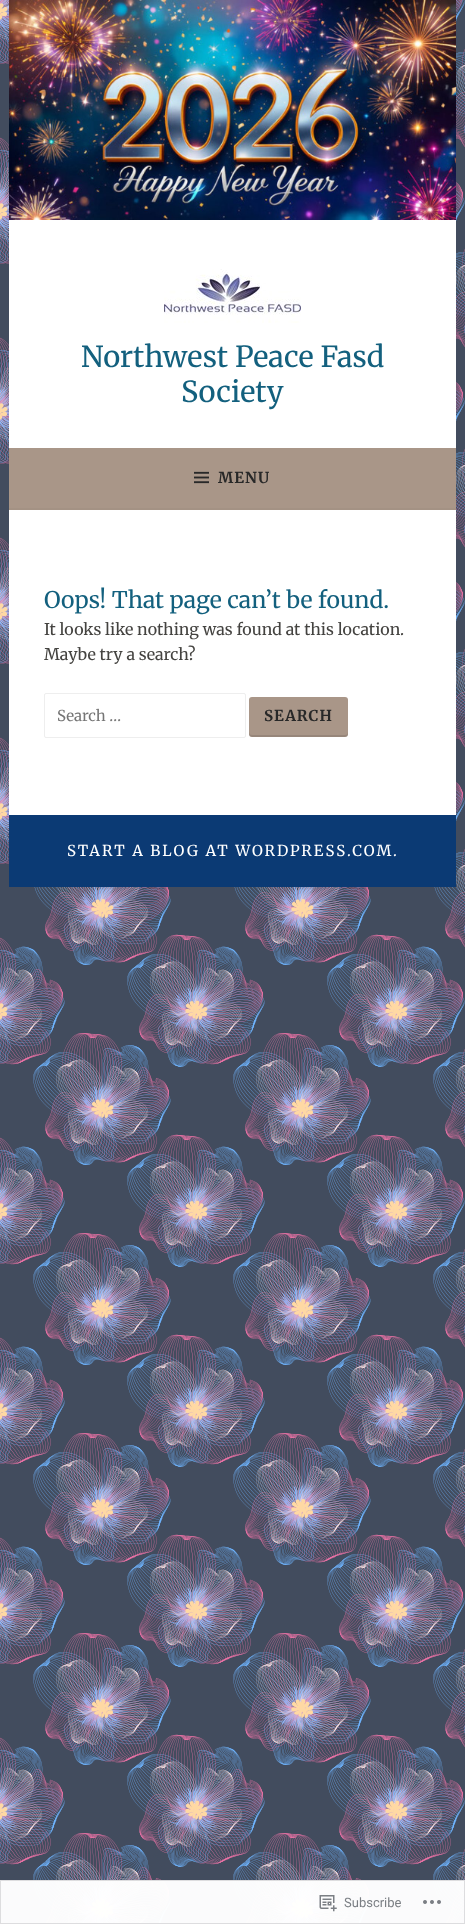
<!DOCTYPE html>
<meta charset="utf-8">
<style>body { margin: 0 } canvas { display: block }</style>
<canvas id="canvas" width="465" height="1924"></canvas>
<img id="img1" src="images/1.png" hidden>
<img id="img2" src="images/2.png" hidden>
<img id="img3" src="images/3.png" hidden>
<img id="img4" src="images/4.png" hidden>
<img id="img5" src="images/5.png" hidden>
<img id="img6" src="images/6.png" hidden>
<script>
window.onload = function () {
    const canvas = document.getElementById('canvas');
    const context = canvas.getContext('2d');
    context.miterLimit = 4;
    context.fontKerning = 'normal';

    context.fillStyle = 'rgb(255, 255, 255)';
    context.fillRect(0, 0, 465, 1924);
    context.drawImage(document.getElementById('img1'), 0, 0, 465, 1924);
    context.drawImage(document.getElementById('img2'), 9, 0, 447, 220);
    context.fillRect(9, 220, 447, 228);
    context.drawImage(document.getElementById('img3'), 164, 269, 137, 54);
    context.fillStyle = 'rgb(169, 150, 136)';
    context.fillRect(9, 448, 447, 60);
    context.fillStyle = 'rgb(164, 146, 132)';
    context.fillRect(9, 508, 447, 2);
    context.drawImage(document.getElementById('img4'), 194, 471, 15, 13);
    context.fillStyle = 'rgb(255, 255, 255)';
    context.fillRect(9, 510, 447, 305);
    context.beginPath();
    context.roundRect(44.5, 693.5, 201, 44, 1.5);
    context.strokeStyle = 'rgb(238, 238, 238)';
    context.stroke();
    context.fillStyle = 'rgb(169, 150, 136)';
    context.beginPath();
    context.roundRect(249, 697, 99, 40, 3);
    context.fill();
    context.fillStyle = 'rgba(0, 0, 0, 0.1)';
    context.beginPath();
    context.moveTo(249, 732);
    context.lineTo(249, 734);
    context.bezierCurveTo(249, 736, 250, 737, 252, 737);
    context.lineTo(345, 737);
    context.bezierCurveTo(347, 737, 348, 736, 348, 734);
    context.lineTo(348, 732);
    context.bezierCurveTo(348, 734, 347, 735, 345, 735);
    context.lineTo(252, 735);
    context.bezierCurveTo(250, 735, 249, 734, 249, 732);
    context.closePath();
    context.fill();
    context.fillStyle = 'rgb(11, 58, 116)';
    context.fillRect(9, 815, 447, 72);
    context.fillStyle = 'rgba(255, 255, 255, 0.98)';
    context.fillRect(0, 1880, 465, 44);
    context.strokeStyle = 'rgba(220, 220, 222, 0.98)';
    context.strokeRect(0.5, 1880.5, 464, 43);
    context.drawImage(document.getElementById('img5'), 319, 1895, 18, 17);
    context.drawImage(document.getElementById('img6'), 423, 1900, 18, 4);
    context.font = '29px Merriweather';
    context.fillStyle = 'rgb(19, 96, 126)';
    context.fillText('Northwest Peace Fasd', 81, 367);
    context.fillText('Society', 181, 402);
    context.letterSpacing = '1px';
    context.font = 'bold 15px Merriweather';
    context.fillStyle = 'rgb(40, 40, 40)';
    context.fillText('MENU', 218, 483);
    context.letterSpacing = '0px';
    context.font = '23px Merriweather';
    context.fillStyle = 'rgb(19, 96, 126)';
    context.fillText('Oops! That page can’t be found.', 44, 608);
    context.font = '16px Merriweather';
    context.fillStyle = 'rgb(68, 67, 64)';
    context.fillText('It looks like nothing was found at this location.', 44, 635);
    context.fillText('Maybe try a search?', 44, 660);
    context.font = '15px Merriweather';
    context.fillStyle = 'rgb(117, 117, 117)';
    context.fillText('Search …', 57, 721);
    context.letterSpacing = '1px';
    context.font = 'bold 15px Merriweather';
    context.fillStyle = 'rgb(40, 40, 40)';
    context.fillText('SEARCH', 264, 721);
    context.letterSpacing = '2px';
    context.font = '15px Merriweather';
    context.fillStyle = 'rgb(255, 255, 255)';
    context.fillText('START A BLOG AT WORDPRESS.COM.', 67, 856);
    context.letterSpacing = '0px';
    context.font = '13px Roboto';
    context.fillStyle = 'rgb(123, 127, 132)';
    context.fillText('Subscribe', 344, 1907);
};
</script>
